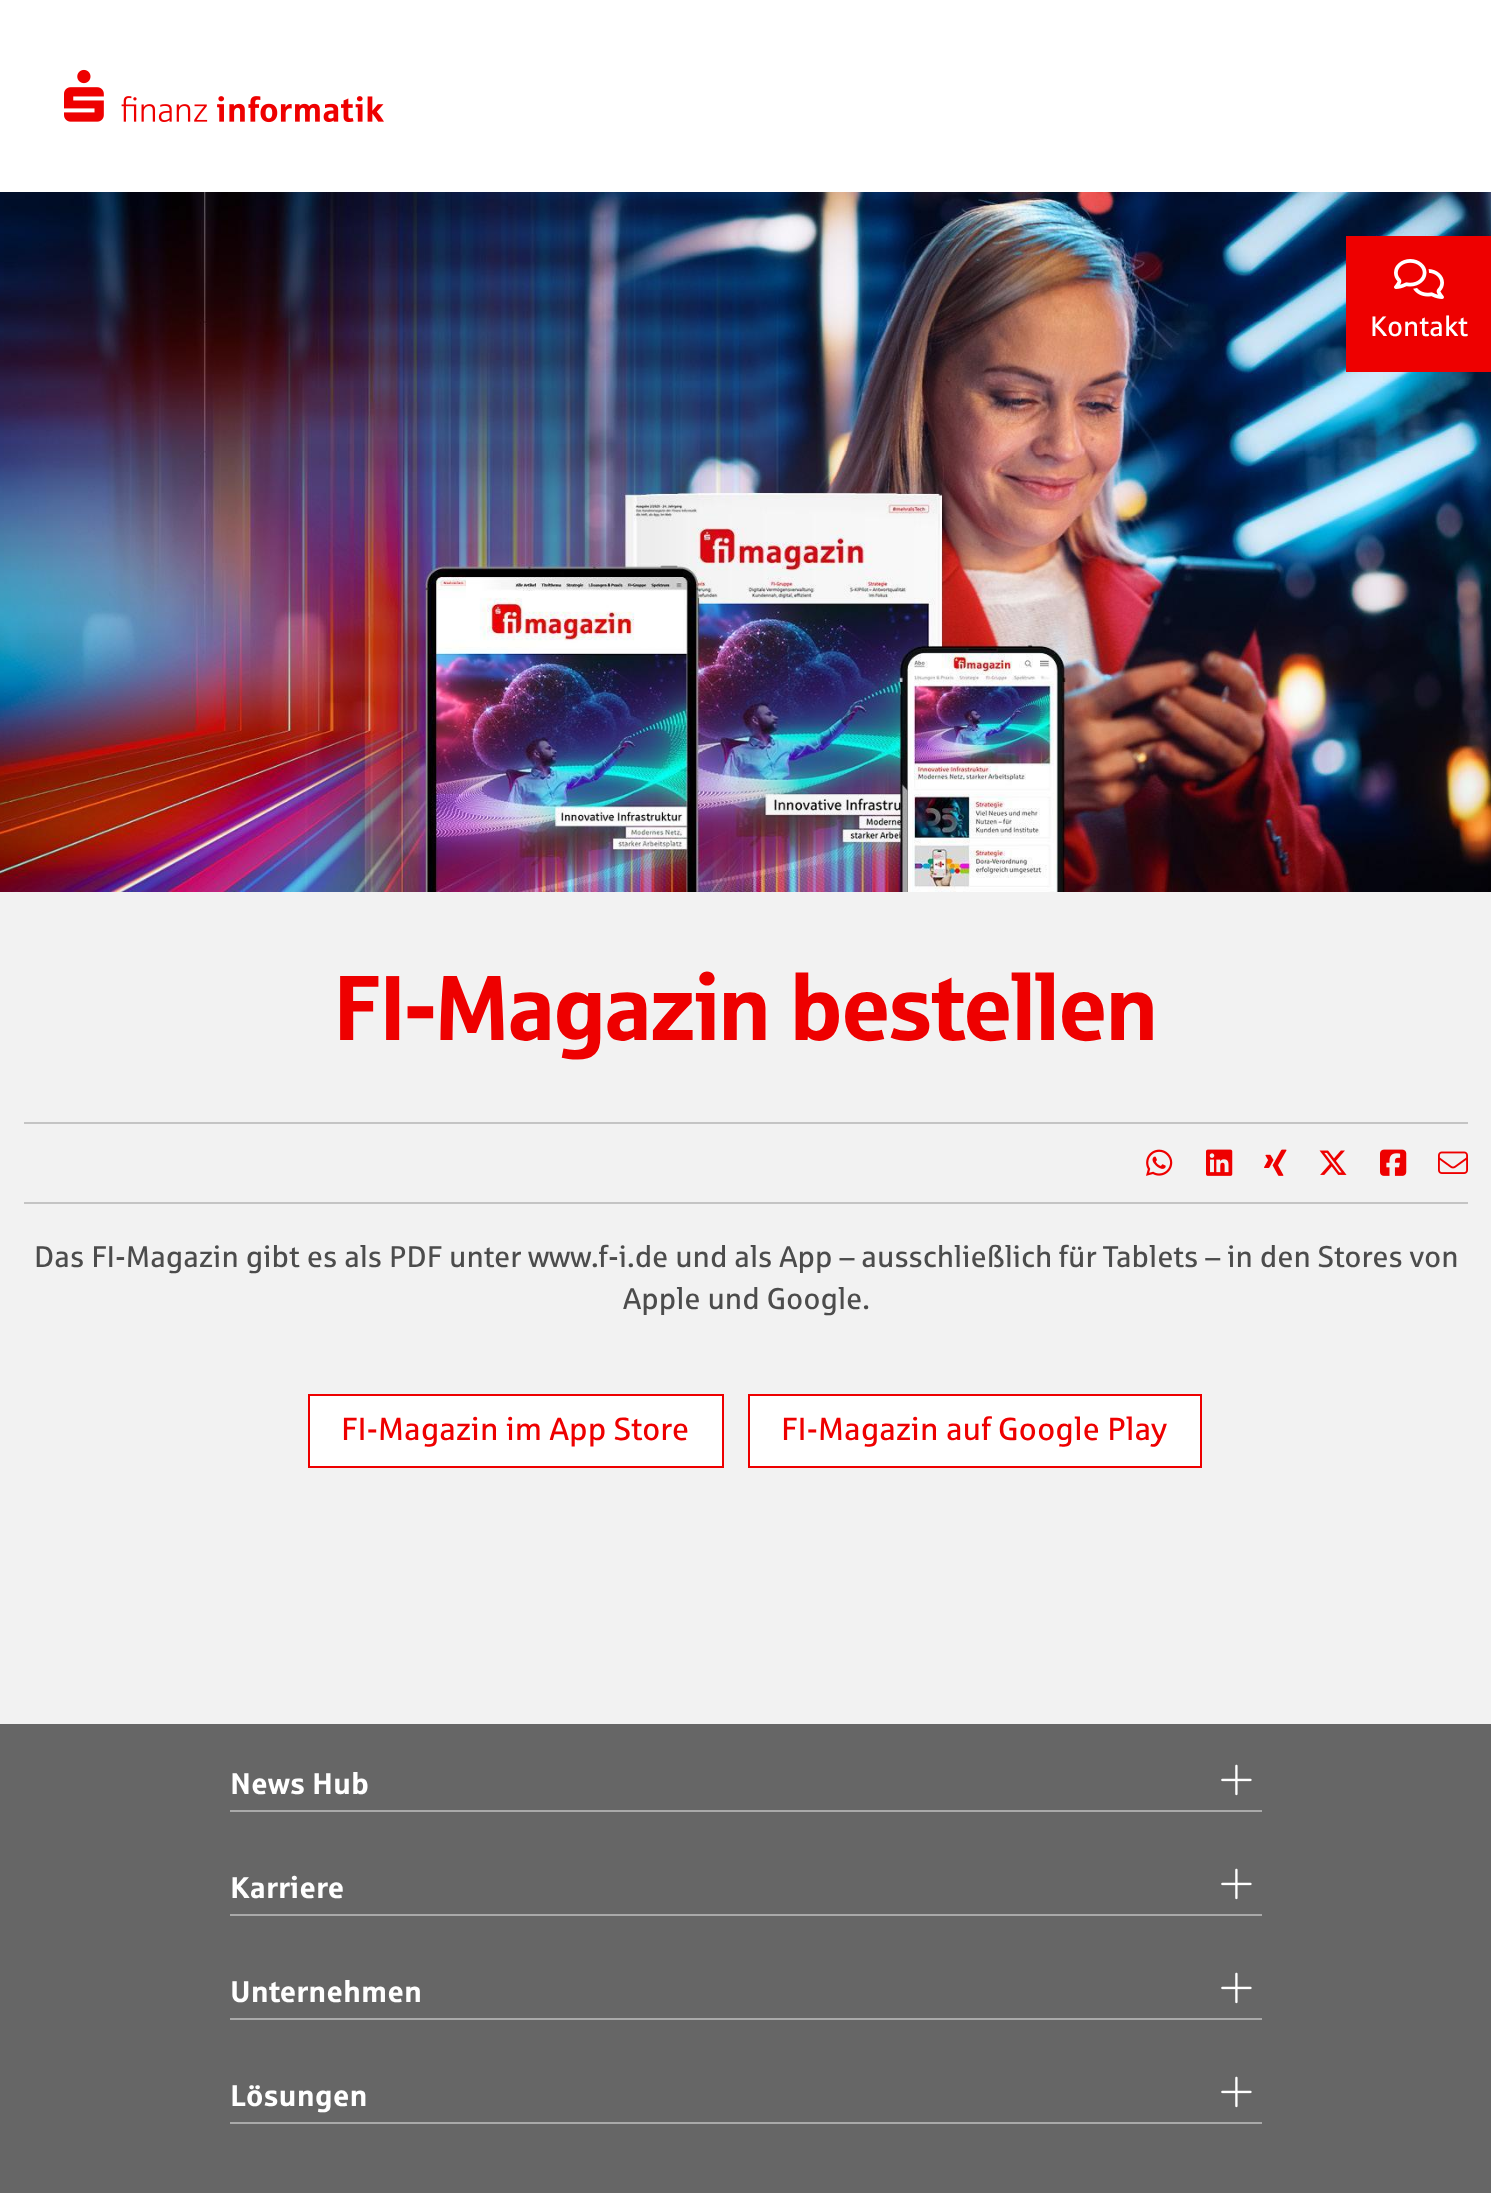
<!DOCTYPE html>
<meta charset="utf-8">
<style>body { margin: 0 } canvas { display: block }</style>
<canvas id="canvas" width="1491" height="2193"></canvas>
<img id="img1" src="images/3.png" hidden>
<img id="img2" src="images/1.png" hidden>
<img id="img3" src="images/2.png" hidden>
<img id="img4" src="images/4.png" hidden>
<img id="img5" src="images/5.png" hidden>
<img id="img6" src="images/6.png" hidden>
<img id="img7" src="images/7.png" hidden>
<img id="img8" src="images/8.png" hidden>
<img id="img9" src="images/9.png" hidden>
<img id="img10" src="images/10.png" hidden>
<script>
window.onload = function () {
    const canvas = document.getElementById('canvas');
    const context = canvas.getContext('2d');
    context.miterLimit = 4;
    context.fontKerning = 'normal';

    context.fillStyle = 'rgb(242, 242, 242)';
    context.fillRect(0, 0, 1491, 2193);
    context.drawImage(document.getElementById('img1'), 0, 192, 1491, 700);
    context.fillStyle = 'rgb(238, 0, 0)';
    context.fillRect(1346, 236, 145, 136);
    context.drawImage(document.getElementById('img2'), 1394, 259, 50, 40);
    context.fillStyle = 'rgb(255, 255, 255)';
    context.fillRect(0, 0, 1491, 192);
    context.drawImage(document.getElementById('img3'), 64, 69, 320, 54);
    context.fillStyle = 'rgb(196, 196, 196)';
    context.fillRect(24, 1122, 1444, 2);
    context.drawImage(document.getElementById('img4'), 1146, 1149, 27, 27);
    context.drawImage(document.getElementById('img5'), 1206, 1149, 27, 27);
    context.drawImage(document.getElementById('img6'), 1264, 1149, 23, 27);
    context.drawImage(document.getElementById('img7'), 1319, 1150, 28, 25);
    context.drawImage(document.getElementById('img8'), 1380, 1149, 27, 27);
    context.drawImage(document.getElementById('img9'), 1438, 1151, 30, 23);
    context.fillRect(24, 1202, 1444, 2);
    context.fillStyle = 'rgb(255, 255, 255)';
    context.beginPath();
    context.rect(309, 1395, 414, 72);
    context.fill();
    context.strokeStyle = 'rgb(238, 0, 0)';
    context.lineWidth = 2;
    context.stroke();
    context.beginPath();
    context.rect(749, 1395, 452, 72);
    context.fill();
    context.stroke();
    context.fillStyle = 'rgb(102, 102, 102)';
    context.fillRect(0, 1724, 1491, 469);
    context.fillStyle = 'rgb(169, 169, 169)';
    context.fillRect(230, 1810, 1032, 2);
    context.drawImage(document.getElementById('img10'), 1221, 1764, 31, 32);
    context.fillRect(230, 1914, 1032, 2);
    context.drawImage(document.getElementById('img10'), 1221, 1868, 31, 32);
    context.fillRect(230, 2018, 1032, 2);
    context.drawImage(document.getElementById('img10'), 1221, 1972, 31, 32);
    context.fillRect(230, 2122, 1032, 2);
    context.drawImage(document.getElementById('img10'), 1221, 2076, 31, 32);
    context.font = '28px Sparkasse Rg';
    context.fillStyle = 'rgb(255, 255, 255)';
    context.fillText('Kontakt', 1370, 336);
    context.font = '92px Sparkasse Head';
    context.fillStyle = 'rgb(238, 0, 0)';
    context.fillText('FI-Magazin bestellen', 335, 1040);
    context.font = '30px Sparkasse Rg';
    context.fillStyle = 'rgb(76, 76, 76)';
    context.fillText('Das FI-Magazin gibt es als PDF unter www.f-i.de und als App – ausschließlich für Tablets – in den Stores von', 34, 1267);
    context.fillText('Apple und Google.', 623, 1309);
    context.font = '32px Sparkasse Rg';
    context.fillStyle = 'rgb(238, 0, 0)';
    context.fillText('FI-Magazin im App Store', 341, 1440);
    context.fillText('FI-Magazin auf Google Play', 781, 1440);
    context.font = 'bold 30px Sparkasse Rg';
    context.fillStyle = 'rgb(255, 255, 255)';
    context.fillText('News Hub', 230, 1794);
    context.fillText('Karriere', 230, 1898);
    context.fillText('Unternehmen', 230, 2002);
    context.fillText('Lösungen', 230, 2106);
};
</script>
